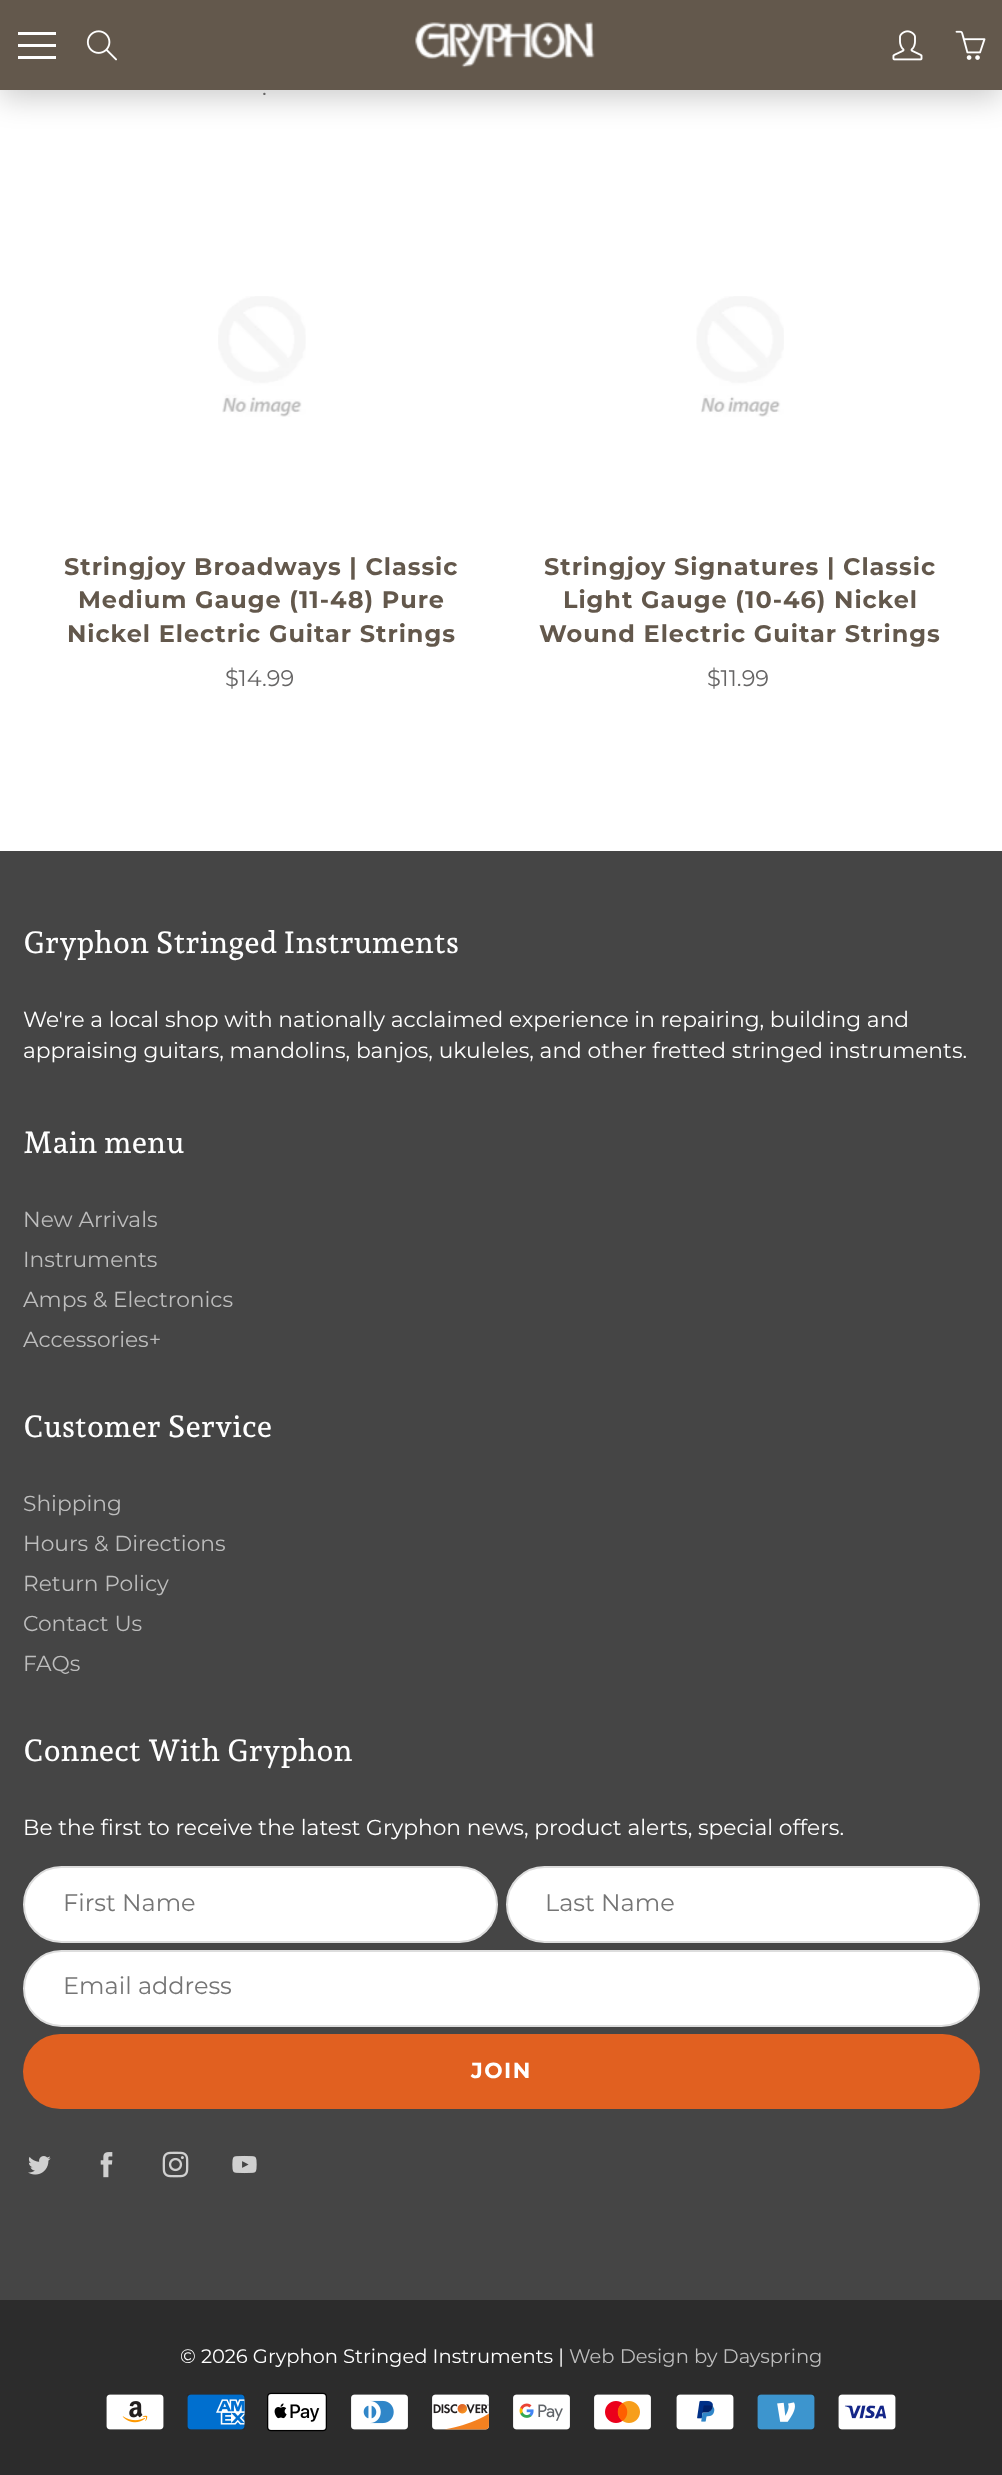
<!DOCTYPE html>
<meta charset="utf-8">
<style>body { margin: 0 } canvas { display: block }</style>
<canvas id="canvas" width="1002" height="2475"></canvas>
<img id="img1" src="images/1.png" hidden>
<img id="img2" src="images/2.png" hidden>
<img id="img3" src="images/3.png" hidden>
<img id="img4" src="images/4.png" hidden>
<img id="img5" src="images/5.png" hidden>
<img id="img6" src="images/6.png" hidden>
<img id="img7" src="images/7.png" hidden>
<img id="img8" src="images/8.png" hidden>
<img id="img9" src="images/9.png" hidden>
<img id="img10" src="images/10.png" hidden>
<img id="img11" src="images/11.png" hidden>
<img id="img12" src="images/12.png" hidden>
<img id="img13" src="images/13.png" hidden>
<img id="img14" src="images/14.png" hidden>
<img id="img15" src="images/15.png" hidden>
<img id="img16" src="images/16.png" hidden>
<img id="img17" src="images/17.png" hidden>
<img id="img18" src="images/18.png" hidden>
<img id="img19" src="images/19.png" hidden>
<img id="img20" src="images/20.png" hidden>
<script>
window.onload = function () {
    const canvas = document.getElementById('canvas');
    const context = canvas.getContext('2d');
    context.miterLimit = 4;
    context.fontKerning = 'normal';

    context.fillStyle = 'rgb(255, 255, 255)';
    context.fillRect(0, 0, 1002, 2475);
    context.fillStyle = 'rgba(0, 0, 0, 0.2)';
    context.filter = 'blur(15px)';
    context.beginPath();
    context.rect(0, 8, 1002, 90);
    context.fill();
    context.filter = 'none';
    context.fillStyle = 'rgb(99, 88, 76)';
    context.fillRect(0, 0, 1002, 90);
    context.fillStyle = 'rgb(255, 255, 255)';
    context.fillRect(18, 44, 38, 3);
    context.fillRect(18, 32, 38, 3);
    context.fillRect(18, 56, 38, 3);
    context.drawImage(document.getElementById('img1'), 86, 30, 31, 31);
    context.drawImage(document.getElementById('img2'), 415, 22, 180, 46);
    context.drawImage(document.getElementById('img3'), 892, 30, 31, 31);
    context.drawImage(document.getElementById('img4'), 955, 30, 31, 30);
    context.drawImage(document.getElementById('img5'), 218, 296, 88, 121);
    context.drawImage(document.getElementById('img6'), 696, 296, 88, 121);
    context.fillStyle = 'rgb(69, 69, 69)';
    context.fillRect(0, 851, 1002, 1449);
    context.fillStyle = 'rgb(255, 255, 255)';
    context.beginPath();
    context.roundRect(24, 1867, 473, 75, 37.5);
    context.fill();
    context.strokeStyle = 'rgb(221, 221, 221)';
    context.lineWidth = 2;
    context.stroke();
    context.beginPath();
    context.roundRect(507, 1867, 472, 75, 37.5);
    context.fill();
    context.stroke();
    context.beginPath();
    context.roundRect(24, 1951, 955, 75, 37.5);
    context.fill();
    context.stroke();
    context.fillStyle = 'rgb(225, 96, 32)';
    context.beginPath();
    context.roundRect(23, 2034, 957, 75, 37.5);
    context.fill();
    context.drawImage(document.getElementById('img7'), 28, 2156, 23, 19);
    context.drawImage(document.getElementById('img8'), 100, 2152, 13, 26);
    context.drawImage(document.getElementById('img9'), 162, 2151, 27, 27);
    context.drawImage(document.getElementById('img10'), 232, 2155, 25, 19);
    context.fillStyle = 'rgb(44, 44, 44)';
    context.fillRect(0, 2300, 1002, 175);
    context.drawImage(document.getElementById('img11'), 106, 2394, 58, 36);
    context.drawImage(document.getElementById('img12'), 187, 2394, 58, 36);
    context.drawImage(document.getElementById('img13'), 267, 2392, 60, 40);
    context.drawImage(document.getElementById('img14'), 351, 2394, 57, 36);
    context.drawImage(document.getElementById('img15'), 432, 2394, 57, 36);
    context.drawImage(document.getElementById('img16'), 513, 2394, 57, 36);
    context.drawImage(document.getElementById('img17'), 594, 2394, 57, 36);
    context.drawImage(document.getElementById('img18'), 676, 2394, 58, 36);
    context.drawImage(document.getElementById('img19'), 757, 2394, 58, 36);
    context.drawImage(document.getElementById('img20'), 838, 2394, 58, 36);
    context.font = '22.5px Montserrat';
    context.fillStyle = 'rgb(102, 101, 101)';
    context.fillText('.', 262, 95);
    context.letterSpacing = '0.95px';
    context.font = 'bold 24px Montserrat';
    context.fillStyle = 'rgb(99, 88, 76)';
    context.fillText('Stringjoy Broadways | Classic', 64, 575);
    context.fillText('Medium Gauge (11-48) Pure', 78, 608);
    context.fillText('Nickel Electric Guitar Strings', 67, 642);
    context.letterSpacing = '0px';
    context.font = '22.5px Montserrat';
    context.fillStyle = 'rgb(102, 101, 101)';
    context.fillText('$14.99', 225, 686);
    context.letterSpacing = '0.95px';
    context.font = 'bold 24px Montserrat';
    context.fillStyle = 'rgb(99, 88, 76)';
    context.fillText('Stringjoy Signatures | Classic', 544, 575);
    context.fillText('Light Gauge (10-46) Nickel', 563, 608);
    context.fillText('Wound Electric Guitar Strings', 539, 642);
    context.letterSpacing = '0px';
    context.font = '22.5px Montserrat';
    context.fillStyle = 'rgb(102, 101, 101)';
    context.fillText('$11.99', 707, 686);
    context.font = '500 30.4px Andada Pro';
    context.fillStyle = 'rgb(255, 255, 255)';
    context.fillText('Gryphon Stringed Instruments', 23, 953);
    context.font = '21.75px Montserrat';
    context.fillText('We\'re a local shop with nationally acclaimed experience in repairing, building and', 23, 1027);
    context.fillText('appraising guitars, mandolins, banjos, ukuleles, and other fretted stringed instruments.', 23, 1058);
    context.font = '500 30.4px Andada Pro';
    context.fillText('Main menu', 23, 1153);
    context.font = '21.75px Montserrat';
    context.fillStyle = 'rgb(189, 189, 189)';
    context.fillText('New Arrivals', 23, 1227);
    context.fillText('Instruments', 23, 1267);
    context.fillText('Amps & Electronics', 23, 1307);
    context.fillText('Accessories+', 23, 1347);
    context.font = '500 30.4px Andada Pro';
    context.fillStyle = 'rgb(255, 255, 255)';
    context.fillText('Customer Service', 23, 1437);
    context.font = '21.75px Montserrat';
    context.fillStyle = 'rgb(189, 189, 189)';
    context.fillText('Shipping', 23, 1511);
    context.fillText('Hours & Directions', 23, 1551);
    context.fillText('Return Policy', 23, 1591);
    context.fillText('Contact Us', 23, 1631);
    context.fillText('FAQs', 23, 1671);
    context.font = '500 30.4px Andada Pro';
    context.fillStyle = 'rgb(255, 255, 255)';
    context.fillText('Connect With Gryphon', 23, 1761);
    context.font = '21.75px Montserrat';
    context.fillText('Be the first to receive the latest Gryphon news, product alerts, special offers.', 23, 1835);
    context.font = '24px Montserrat';
    context.fillStyle = 'rgb(117, 117, 117)';
    context.fillText('First Name', 63, 1911);
    context.fillText('Last Name', 545, 1911);
    context.fillText('Email address', 63, 1994);
    context.letterSpacing = '1.5px';
    context.font = 'bold 21.75px Montserrat';
    context.fillStyle = 'rgb(255, 255, 255)';
    context.fillText('JOIN', 471, 2078);
    context.letterSpacing = '0px';
    context.font = '19.5px Montserrat';
    context.fillText('© 2026 Gryphon Stringed Instruments |', 180, 2363);
    context.fillStyle = 'rgb(189, 189, 189)';
    context.fillText('Web Design by Dayspring', 569, 2363);
};
</script>
